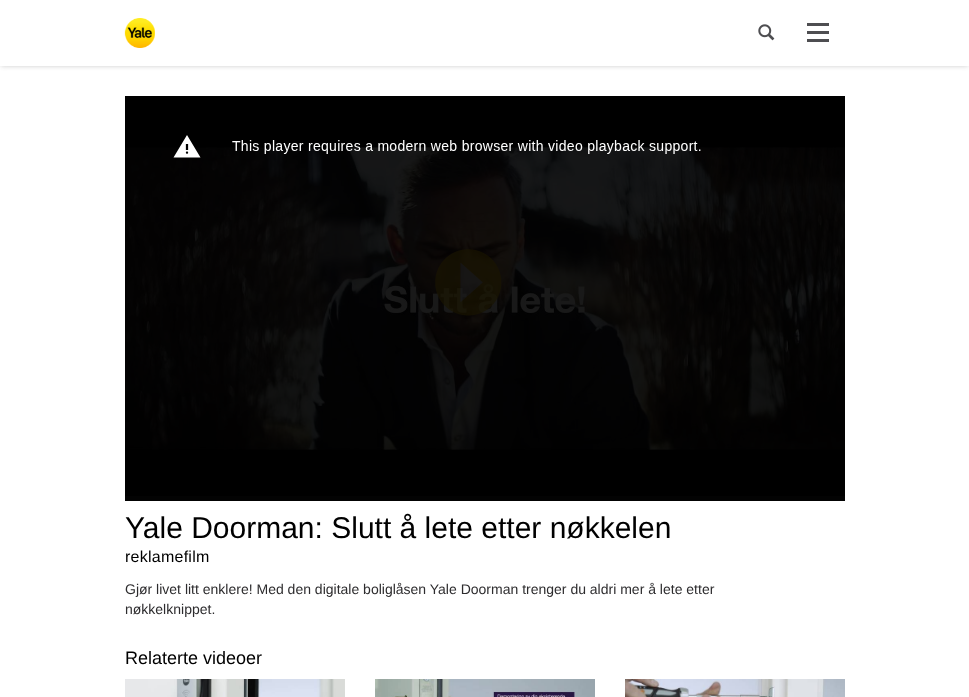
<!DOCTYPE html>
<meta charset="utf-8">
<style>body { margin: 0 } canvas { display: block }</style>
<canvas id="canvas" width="969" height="697"></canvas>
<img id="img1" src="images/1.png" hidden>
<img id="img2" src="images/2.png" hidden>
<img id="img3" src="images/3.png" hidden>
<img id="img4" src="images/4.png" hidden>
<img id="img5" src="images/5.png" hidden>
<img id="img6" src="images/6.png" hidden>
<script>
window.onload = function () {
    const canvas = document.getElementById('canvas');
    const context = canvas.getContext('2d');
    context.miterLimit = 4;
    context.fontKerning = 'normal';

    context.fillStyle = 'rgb(255, 255, 255)';
    context.fillRect(0, 0, 969, 697);
    context.save();
    context.beginPath();
    context.rect(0, 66, 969, 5);
    context.clip();
    context.fillStyle = 'rgb(204, 204, 204)';
    context.filter = 'blur(2.5px)';
    context.beginPath();
    context.rect(1, -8, 967, 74);
    context.fill();
    context.filter = 'none';
    context.restore();
    context.drawImage(document.getElementById('img1'), 124, 18, 31, 30);
    context.drawImage(document.getElementById('img2'), 758, 24, 17, 17);
    context.fillStyle = 'rgb(78, 78, 81)';
    context.fillRect(807, 23, 22, 3);
    context.fillRect(807, 31, 22, 3);
    context.fillRect(807, 39, 22, 3);
    context.drawImage(document.getElementById('img3'), 125, 96, 720, 405);
    context.drawImage(document.getElementById('img4'), 125, 679, 220, 18);
    context.drawImage(document.getElementById('img5'), 375, 679, 220, 18);
    context.drawImage(document.getElementById('img6'), 625, 679, 220, 18);
    context.font = '30px Liberation Sans';
    context.fillStyle = 'rgb(0, 0, 0)';
    context.fillText('Yale Doorman: Slutt å lete etter nøkkelen', 125, 538);
    context.letterSpacing = '0.25px';
    context.font = '16px Liberation Sans';
    context.fillText('reklamefilm', 125, 562);
    context.letterSpacing = '0px';
    context.font = '14px Liberation Sans';
    context.fillStyle = 'rgb(45, 44, 46)';
    context.fillText('Gjør livet litt enklere! Med den digitale boliglåsen Yale Doorman trenger du aldri mer å lete etter', 125, 594);
    context.fillText('nøkkelknippet.', 125, 614);
    context.font = '18px Liberation Sans';
    context.fillStyle = 'rgb(0, 0, 0)';
    context.fillText('Relaterte videoer', 125, 664);
};
</script>
